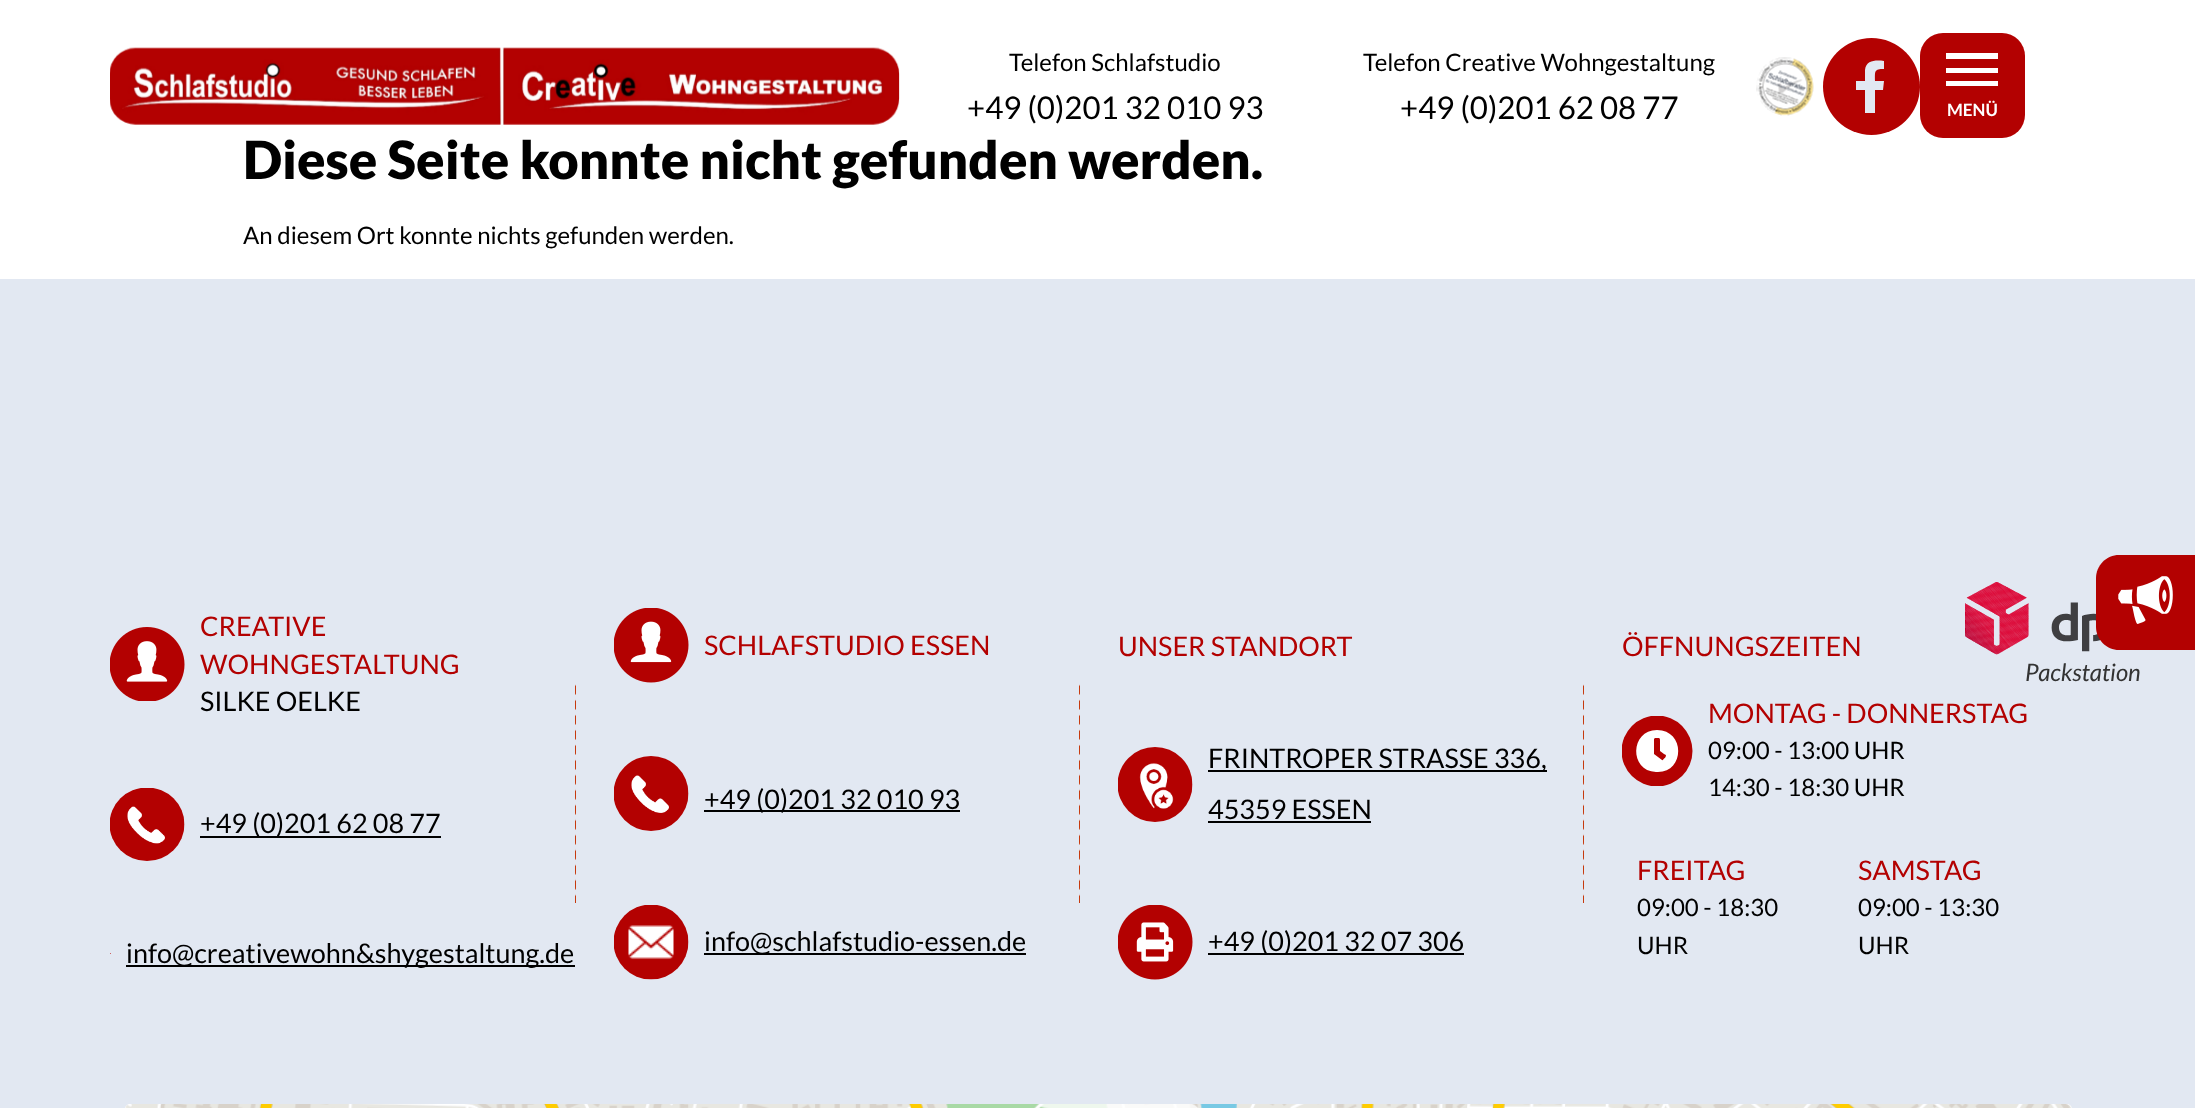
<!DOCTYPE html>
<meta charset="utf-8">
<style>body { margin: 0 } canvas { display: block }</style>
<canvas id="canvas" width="2195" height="1108"></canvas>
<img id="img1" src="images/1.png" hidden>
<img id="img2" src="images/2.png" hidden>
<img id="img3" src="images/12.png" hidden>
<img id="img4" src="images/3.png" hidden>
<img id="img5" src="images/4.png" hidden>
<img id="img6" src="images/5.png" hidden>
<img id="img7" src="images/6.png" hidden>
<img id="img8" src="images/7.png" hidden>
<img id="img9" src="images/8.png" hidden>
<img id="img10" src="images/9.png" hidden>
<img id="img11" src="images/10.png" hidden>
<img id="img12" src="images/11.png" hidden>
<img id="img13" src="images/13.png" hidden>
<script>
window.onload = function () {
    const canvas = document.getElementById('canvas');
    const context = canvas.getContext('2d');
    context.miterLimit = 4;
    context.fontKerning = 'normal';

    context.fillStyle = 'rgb(255, 255, 255)';
    context.fillRect(0, 0, 2195, 1108);
    context.drawImage(document.getElementById('img1'), 110, 47, 790, 78);
    context.drawImage(document.getElementById('img2'), 1756, 57, 58, 59);
    context.fillStyle = 'rgb(179, 1, 1)';
    context.beginPath();
    context.arc(1871.5, 86.5, 48.5, 0, 2 * Math.PI);
    context.fill();
    context.fillStyle = 'rgb(226, 232, 242)';
    context.beginPath();
    context.moveTo(1883, 90);
    context.lineTo(1875, 90);
    context.lineTo(1875, 113);
    context.lineTo(1865, 113);
    context.lineTo(1865, 90);
    context.lineTo(1856, 90);
    context.lineTo(1856, 81);
    context.lineTo(1865, 81);
    context.lineTo(1865, 70);
    context.bezierCurveTo(1866, 60, 1876, 60, 1884, 61);
    context.lineTo(1884, 69);
    context.bezierCurveTo(1874, 69, 1875, 71, 1875, 81);
    context.lineTo(1884, 81);
    context.closePath();
    context.fill();
    context.fillStyle = 'rgb(179, 1, 1)';
    context.beginPath();
    context.roundRect(1920, 33, 105, 105, 23);
    context.fill();
    context.fillStyle = 'rgb(255, 255, 255)';
    context.fillRect(1946, 53, 52, 6);
    context.fillRect(1946, 68, 52, 5);
    context.fillRect(1946, 81, 52, 5);
    context.fillStyle = 'rgb(226, 232, 242)';
    context.fillRect(0, 279, 2195, 829);
    context.drawImage(document.getElementById('img3'), 1965, 582, 135, 73);
    context.fillStyle = 'rgb(179, 1, 1)';
    context.beginPath();
    context.moveTo(2119, 555);
    context.lineTo(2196, 555);
    context.lineTo(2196, 650);
    context.lineTo(2119, 650);
    context.bezierCurveTo(2106.5, 650, 2096, 639.5, 2096, 627);
    context.lineTo(2096, 578);
    context.bezierCurveTo(2096, 565.5, 2106.5, 555, 2119, 555);
    context.closePath();
    context.fill();
    context.drawImage(document.getElementById('img4'), 2118, 576, 55, 48);
    context.drawImage(document.getElementById('img5'), 110, 627, 75, 74);
    context.drawImage(document.getElementById('img6'), 110, 788, 75, 73);
    context.fillStyle = 'rgb(0, 0, 0)';
    context.fillRect(200, 836, 241, 2);
    context.fillStyle = 'rgb(206, 99, 100)';
    context.fillRect(110, 953, 1, 1);
    context.fillStyle = 'rgb(0, 0, 0)';
    context.fillRect(126, 965, 449, 2);
    context.drawImage(document.getElementById('img7'), 575, 684, 1, 219);
    context.drawImage(document.getElementById('img8'), 614, 608, 75, 75);
    context.drawImage(document.getElementById('img9'), 614, 756, 75, 75);
    context.fillRect(704, 810, 256, 2);
    context.drawImage(document.getElementById('img10'), 614, 905, 75, 75);
    context.fillRect(704, 953, 322, 2);
    context.drawImage(document.getElementById('img7'), 1079, 684, 1, 219);
    context.drawImage(document.getElementById('img11'), 1118, 747, 75, 75);
    context.fillRect(1208, 770, 339, 2);
    context.fillRect(1208, 821, 163, 2);
    context.drawImage(document.getElementById('img12'), 1118, 905, 75, 75);
    context.fillRect(1208, 953, 256, 2);
    context.drawImage(document.getElementById('img7'), 1583, 684, 1, 219);
    context.save();
    context.beginPath();
    context.rect(1622, 716, 71, 70);
    context.clip();
    context.fillStyle = 'rgb(179, 1, 1)';
    context.beginPath();
    context.arc(1657, 751, 35.5, 0, 2 * Math.PI);
    context.fill();
    context.restore();
    context.fillStyle = 'rgb(255, 255, 255)';
    context.beginPath();
    context.moveTo(1657, 730);
    context.bezierCurveTo(1630, 730, 1629, 771, 1656, 772);
    context.bezierCurveTo(1685, 774, 1686, 730, 1657, 730);
    context.closePath();
    context.moveTo(1662, 760);
    context.lineTo(1654, 754);
    context.lineTo(1654, 741);
    context.bezierCurveTo(1654, 738, 1654, 738, 1657, 738);
    context.bezierCurveTo(1660, 738, 1660, 738, 1660, 741);
    context.lineTo(1660, 751);
    context.lineTo(1664, 754);
    context.bezierCurveTo(1667, 755, 1666, 756, 1665, 758);
    context.bezierCurveTo(1664, 758, 1663, 761, 1662, 760);
    context.closePath();
    context.fill();
    context.fillStyle = 'rgb(250, 250, 250)';
    context.beginPath();
    context.roundRect(125, 1104, 1947, 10, 6);
    context.fill();
    context.drawImage(document.getElementById('img13'), 125, 1104, 1946, 4);
    context.font = '24px Lato';
    context.fillStyle = 'rgb(0, 0, 0)';
    context.fillText('Telefon Schlafstudio', 1009, 71);
    context.font = '31.25px Lato';
    context.fillText('+49 (0)201 32 010 93', 967, 119);
    context.font = '24px Lato';
    context.fillText('Telefon Creative Wohngestaltung', 1363, 71);
    context.font = '31.25px Lato';
    context.fillText('+49 (0)201 62 08 77', 1400, 119);
    context.font = 'bold 17px Lato';
    context.fillStyle = 'rgb(255, 255, 255)';
    context.fillText('MENÜ', 1947, 116);
    context.font = '900 52.6px Lato';
    context.fillStyle = 'rgb(0, 0, 0)';
    context.fillText('Diese Seite konnte nicht gefunden werden.', 243, 179);
    context.font = '24px Lato';
    context.fillText('An diesem Ort konnte nichts gefunden werden.', 243, 244);
    context.font = '27px Lato';
    context.fillStyle = 'rgb(179, 1, 1)';
    context.fillText('CREATIVE', 200, 636);
    context.fillText('WOHNGESTALTUNG', 200, 674);
    context.fillStyle = 'rgb(0, 0, 0)';
    context.fillText('SILKE OELKE', 200, 711);
    context.fillText('+49 (0)201 62 08 77', 200, 833);
    context.fillText('info@creativewohn&shygestaltung.de', 126, 963);
    context.fillStyle = 'rgb(179, 1, 1)';
    context.fillText('SCHLAFSTUDIO ESSEN', 704, 655);
    context.fillStyle = 'rgb(0, 0, 0)';
    context.fillText('+49 (0)201 32 010 93', 704, 809);
    context.fillText('info@schlafstudio-essen.de', 704, 951);
    context.fillStyle = 'rgb(179, 1, 1)';
    context.fillText('UNSER STANDORT', 1118, 656);
    context.fillStyle = 'rgb(0, 0, 0)';
    context.fillText('FRINTROPER STRASSE 336,', 1208, 768);
    context.fillText('45359 ESSEN', 1208, 819);
    context.fillText('+49 (0)201 32 07 306', 1208, 951);
    context.fillStyle = 'rgb(179, 1, 1)';
    context.fillText('ÖFFNUNGSZEITEN', 1622, 656);
    context.font = 'italic 24px Lato';
    context.fillStyle = 'rgb(51, 51, 51)';
    context.fillText('Packstation', 2025, 681);
    context.font = '27px Lato';
    context.fillStyle = 'rgb(179, 1, 1)';
    context.fillText('MONTAG - DONNERSTAG', 1708, 723);
    context.font = '24px Lato';
    context.fillStyle = 'rgb(0, 0, 0)';
    context.fillText('09:00 - 13:00 UHR', 1708, 759);
    context.fillText('14:30 - 18:30 UHR', 1708, 796);
    context.font = '27px Lato';
    context.fillStyle = 'rgb(179, 1, 1)';
    context.fillText('FREITAG', 1637, 880);
    context.font = '24px Lato';
    context.fillStyle = 'rgb(0, 0, 0)';
    context.fillText('09:00 - 18:30', 1637, 916);
    context.fillText('UHR', 1637, 954);
    context.font = '27px Lato';
    context.fillStyle = 'rgb(179, 1, 1)';
    context.fillText('SAMSTAG', 1858, 880);
    context.font = '24px Lato';
    context.fillStyle = 'rgb(0, 0, 0)';
    context.fillText('09:00 - 13:30', 1858, 916);
    context.fillText('UHR', 1858, 954);
};
</script>
